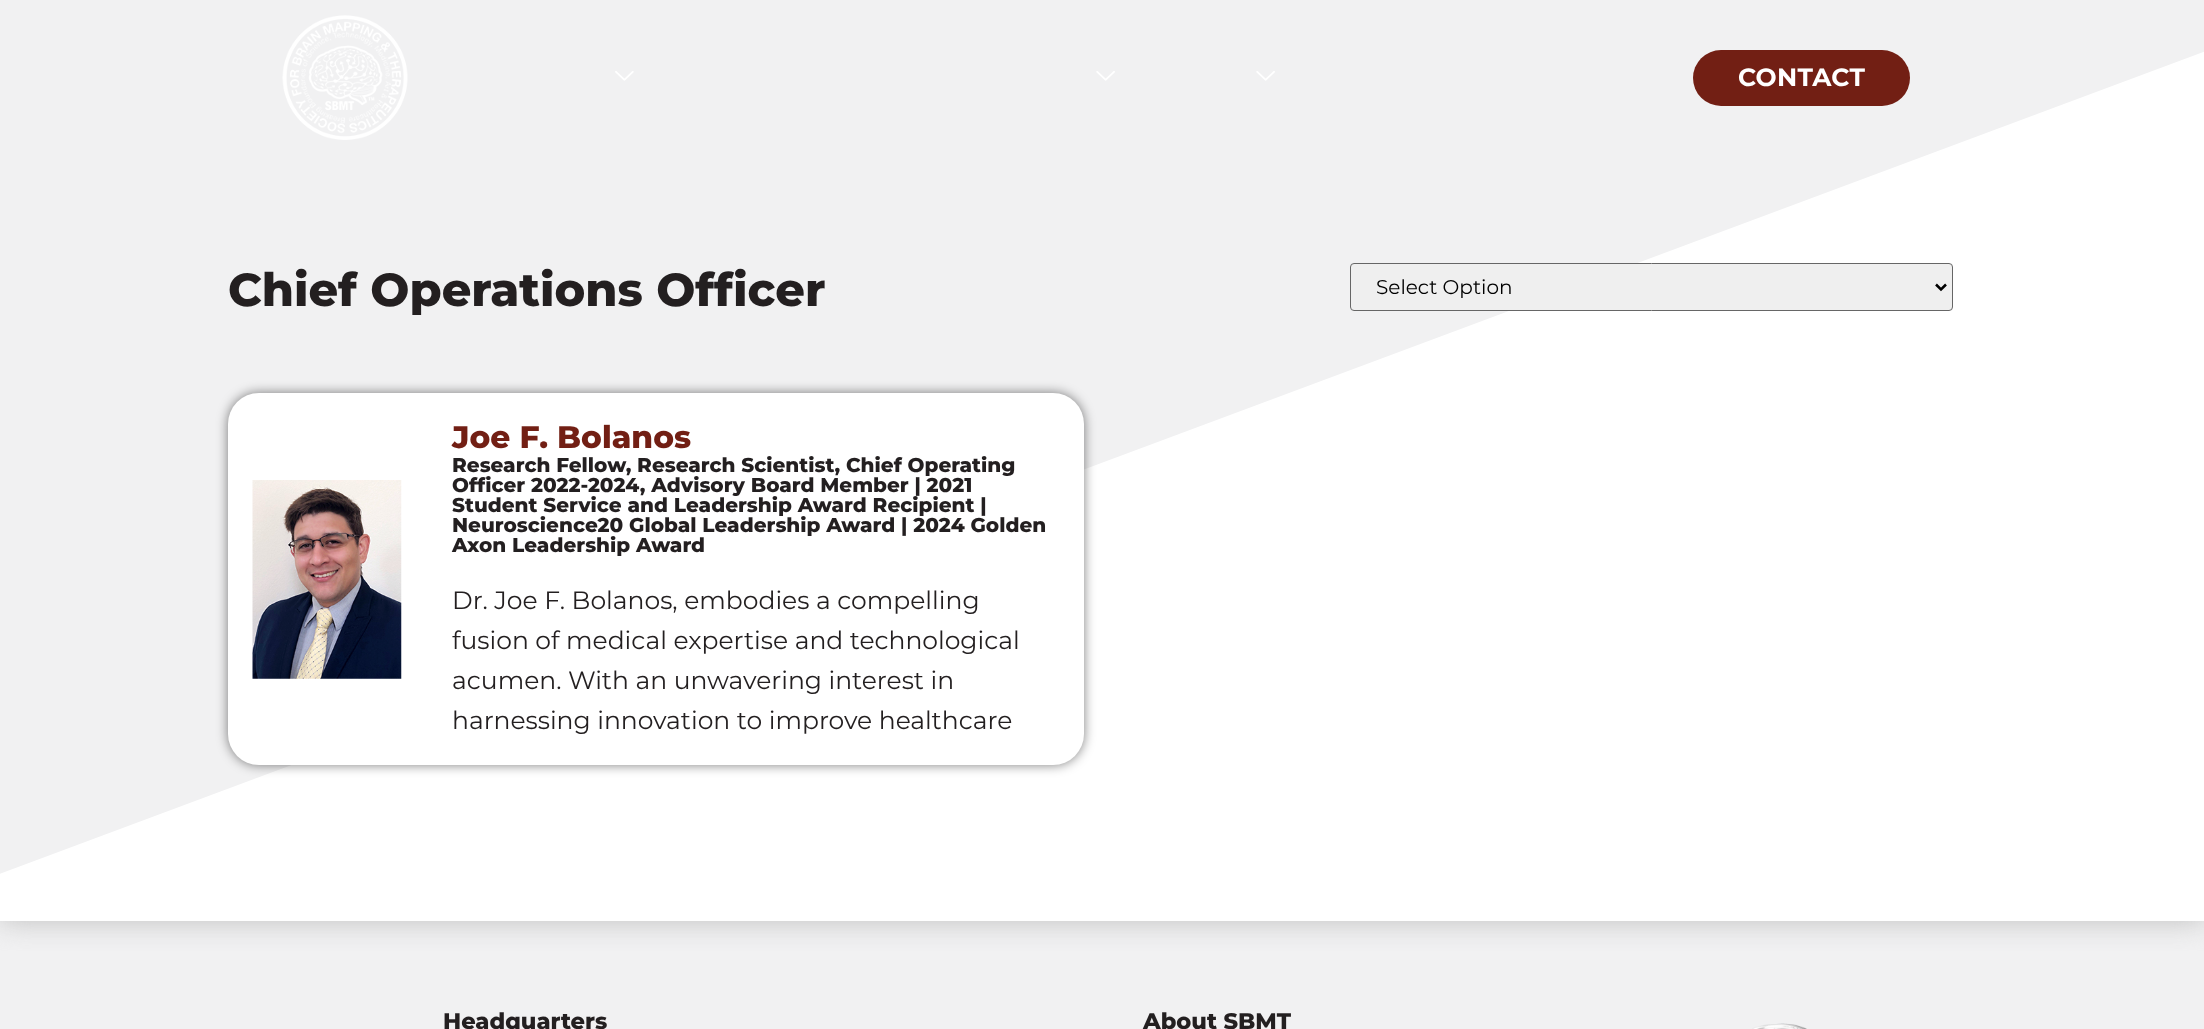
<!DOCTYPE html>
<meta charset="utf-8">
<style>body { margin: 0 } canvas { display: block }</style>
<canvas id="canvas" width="2204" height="1029"></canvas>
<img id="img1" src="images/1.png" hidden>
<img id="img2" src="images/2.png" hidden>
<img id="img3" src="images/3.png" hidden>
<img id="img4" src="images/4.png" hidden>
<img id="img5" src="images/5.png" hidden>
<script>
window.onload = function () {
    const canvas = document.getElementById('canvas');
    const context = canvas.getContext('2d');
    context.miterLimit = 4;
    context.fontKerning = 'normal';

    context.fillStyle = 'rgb(255, 255, 255)';
    context.fillRect(0, 0, 2204, 1029);
    context.fillStyle = 'rgb(241, 241, 242)';
    context.fillRect(0, 921, 2204, 108);
    context.save();
    context.beginPath();
    context.rect(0, 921, 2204, 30);
    context.clip();
    context.fillStyle = 'rgb(191, 191, 191)';
    context.filter = 'blur(14.5px)';
    context.beginPath();
    context.rect(0, 0, 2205, 921);
    context.fill();
    context.filter = 'none';
    context.restore();
    context.beginPath();
    context.moveTo(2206, 51);
    context.lineTo(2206, -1);
    context.lineTo(-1, -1);
    context.lineTo(-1, 874);
    context.closePath();
    context.fill();
    context.drawImage(document.getElementById('img1'), 282, 15, 126, 125);
    context.drawImage(document.getElementById('img2'), 615, 71, 19, 10);
    context.drawImage(document.getElementById('img3'), 1096, 71, 19, 10);
    context.drawImage(document.getElementById('img3'), 1256, 71, 19, 10);
    context.fillStyle = 'rgb(114, 31, 20)';
    context.beginPath();
    context.roundRect(1693, 50, 217, 56, 28);
    context.fill();
    context.fillStyle = 'rgb(239, 239, 239)';
    context.beginPath();
    context.roundRect(1350.5, 263.5, 602, 47, 3.5);
    context.fill();
    context.strokeStyle = 'rgb(102, 102, 102)';
    context.stroke();
    context.beginPath();
    context.moveTo(1936, 284.5);
    context.lineTo(1941, 289.5);
    context.lineTo(1946, 284.5);
    context.strokeStyle = 'rgb(0, 0, 0)';
    context.lineWidth = 2.5;
    context.stroke();
    context.fillStyle = 'rgba(0, 0, 0, 0.5)';
    context.filter = 'blur(6px)';
    context.beginPath();
    context.roundRect(228, 393, 856, 372, 31);
    context.fill();
    context.filter = 'none';
    context.fillStyle = 'rgb(255, 255, 255)';
    context.beginPath();
    context.roundRect(228, 393, 856, 372, 31);
    context.fill();
    context.drawImage(document.getElementById('img4'), 252, 480, 150, 199);
    context.drawImage(document.getElementById('img5'), 1752, 1023, 55, 6);
    context.letterSpacing = '0.25px';
    context.font = 'bold 25px Montserrat';
    context.fillText('CONTACT', 1738, 86);
    context.letterSpacing = '0px';
    context.font = '800 46.25px Montserrat';
    context.fillStyle = 'rgb(35, 31, 32)';
    context.fillText('Chief Operations Officer', 228, 306);
    context.font = '20px Montserrat';
    context.fillStyle = 'rgb(0, 0, 0)';
    context.fillText('Select Option', 1376, 294);
    context.font = '800 31.25px Montserrat';
    context.fillStyle = 'rgb(114, 31, 20)';
    context.fillText('Joe F. Bolanos', 452, 448);
    context.font = '800 20px Montserrat';
    context.fillStyle = 'rgb(35, 31, 32)';
    context.fillText('Research Fellow, Research Scientist, Chief Operating', 452, 472);
    context.fillText('Officer 2022-2024, Advisory Board Member | 2021', 452, 492);
    context.fillText('Student Service and Leadership Award Recipient |', 452, 512);
    context.fillText('Neuroscience20 Global Leadership Award | 2024 Golden', 452, 532);
    context.fillText('Axon Leadership Award', 452, 552);
    context.font = '25px Montserrat';
    context.fillText('Dr. Joe F. Bolanos, embodies a compelling', 452, 609);
    context.fillText('fusion of medical expertise and technological', 452, 649);
    context.fillText('acumen. With an unwavering interest in', 452, 689);
    context.fillText('harnessing innovation to improve healthcare', 452, 729);
    context.font = '800 22.5px Montserrat';
    context.fillText('Headquarters', 443, 1029);
    context.fillText('About SBMT', 1143, 1029);
};
</script>
